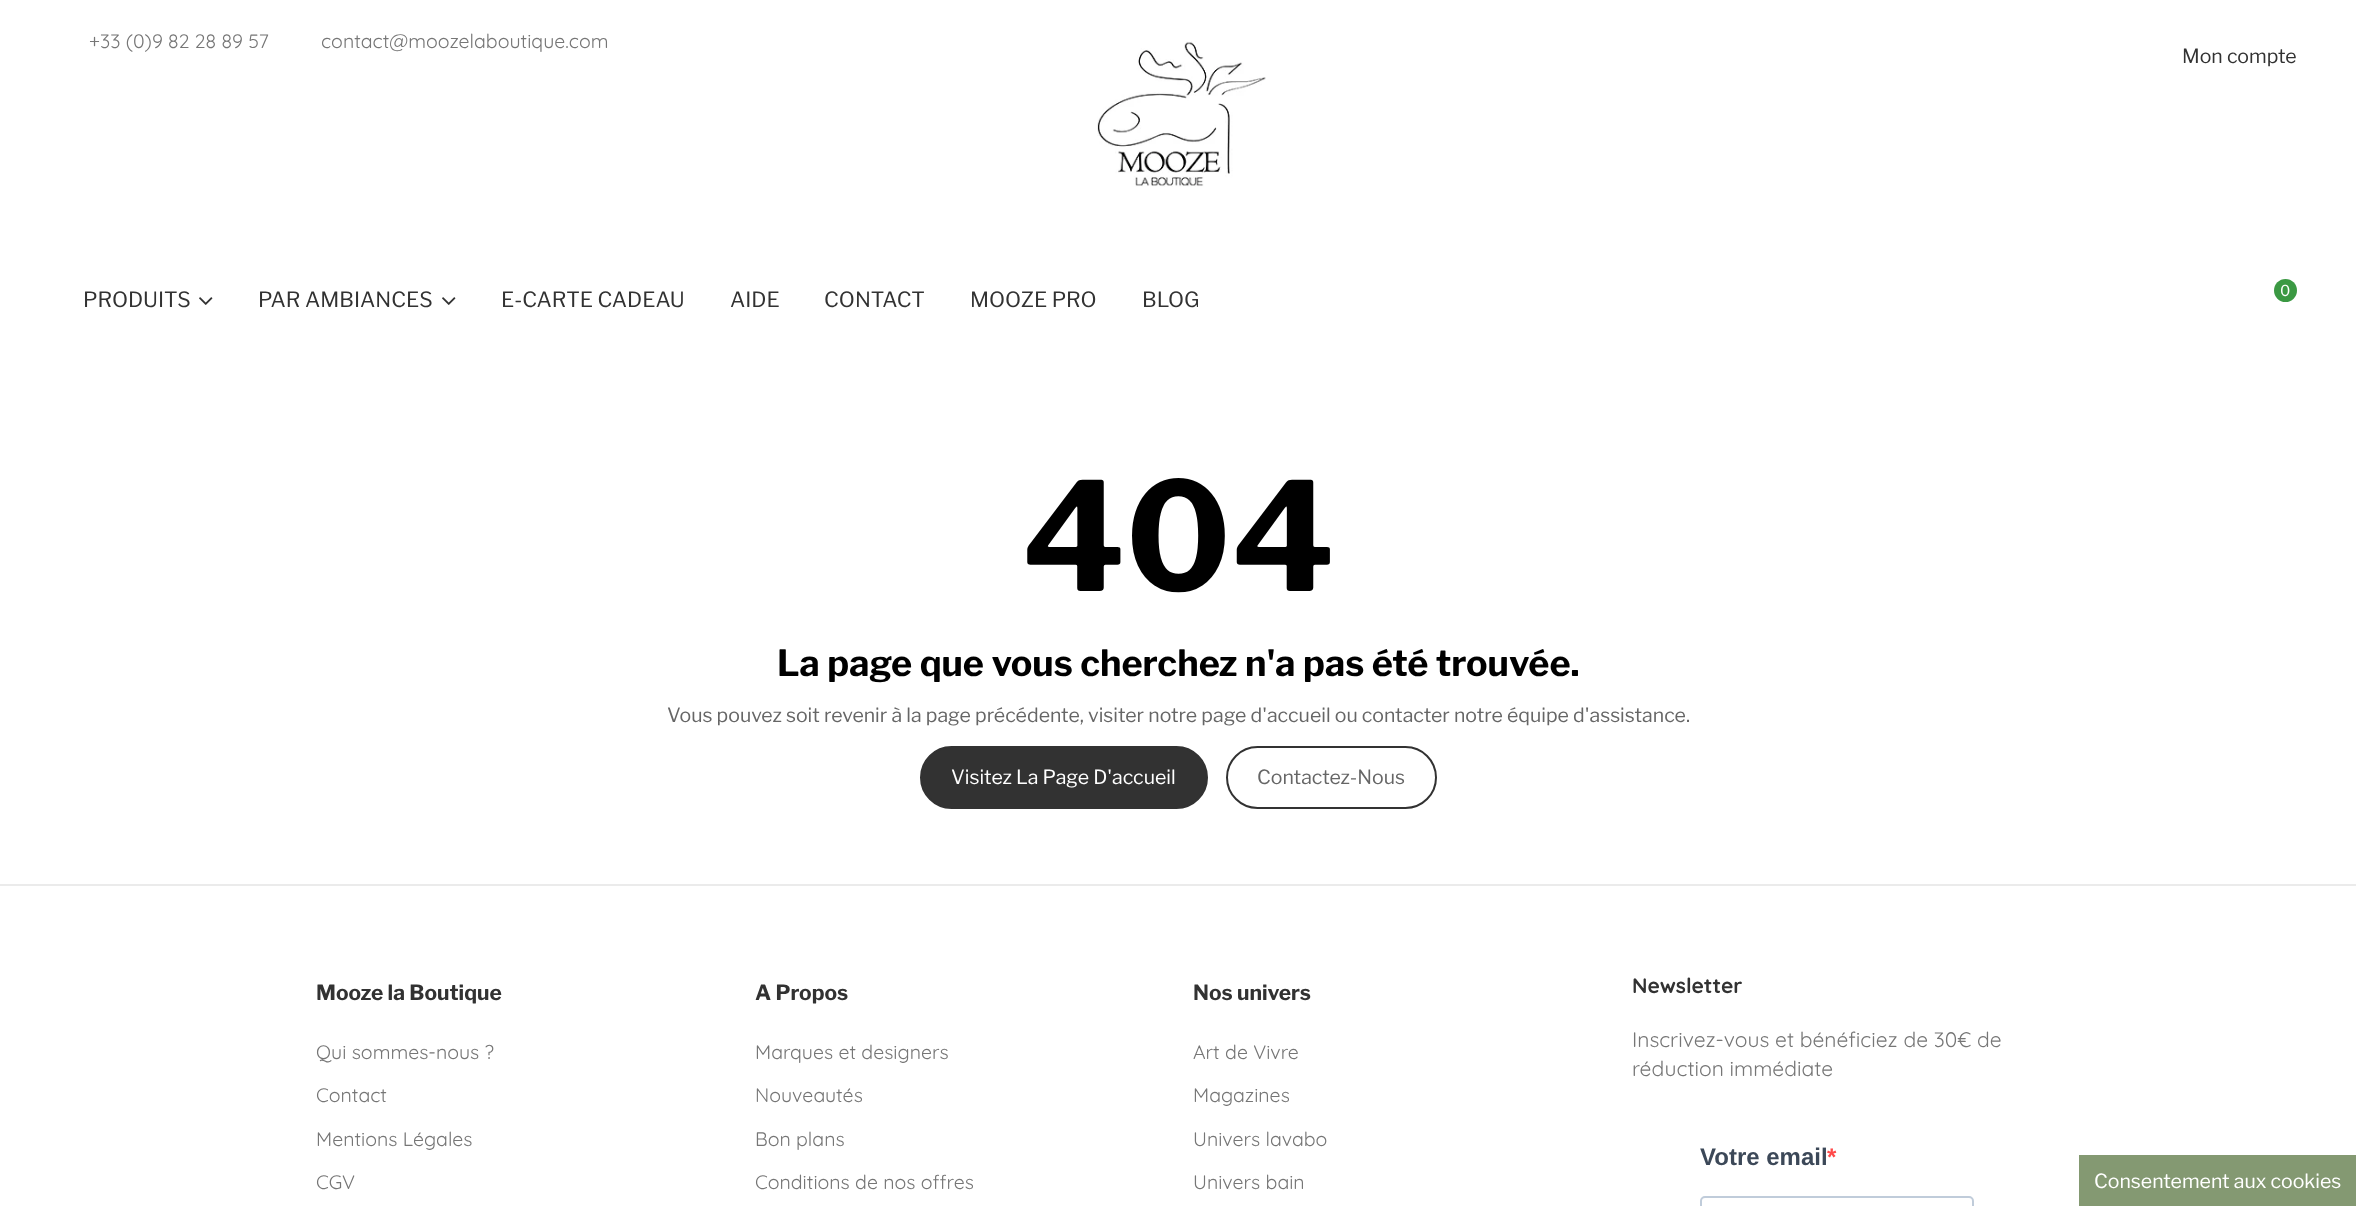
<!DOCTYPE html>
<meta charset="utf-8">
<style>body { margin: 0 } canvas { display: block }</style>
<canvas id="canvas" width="2356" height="1206"></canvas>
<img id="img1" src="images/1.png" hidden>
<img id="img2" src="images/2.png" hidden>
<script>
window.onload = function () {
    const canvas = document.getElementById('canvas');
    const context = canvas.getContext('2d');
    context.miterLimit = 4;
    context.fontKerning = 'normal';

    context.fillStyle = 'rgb(255, 255, 255)';
    context.fillRect(0, 0, 2356, 1206);
    context.drawImage(document.getElementById('img1'), 1097, 41, 169, 146);
    context.drawImage(document.getElementById('img2'), 199, 297, 14, 8);
    context.drawImage(document.getElementById('img2'), 442, 297, 14, 8);
    context.fillStyle = 'rgb(59, 153, 67)';
    context.beginPath();
    context.arc(2285.5, 290.5, 11.5, 0, 2 * Math.PI);
    context.fill();
    context.fillStyle = 'rgb(50, 50, 50)';
    context.beginPath();
    context.roundRect(921, 747, 286, 61, 30.5);
    context.fill();
    context.strokeStyle = 'rgb(50, 50, 50)';
    context.lineWidth = 2;
    context.stroke();
    context.beginPath();
    context.roundRect(1227, 747, 209, 61, 30.5);
    context.stroke();
    context.fillStyle = 'rgb(235, 235, 235)';
    context.fillRect(0, 884, 2356, 2);
    context.beginPath();
    context.roundRect(1701, 1197, 272, 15, 4);
    context.strokeStyle = 'rgb(192, 204, 218)';
    context.stroke();
    context.fillStyle = 'rgb(132, 153, 114)';
    context.fillRect(2079, 1155, 277, 51);
    context.font = '19.5px Quicksand';
    context.fillStyle = 'rgb(118, 118, 118)';
    context.fillText('+33 (0)9 82 28 89 57', 89, 48);
    context.fillText('contact@moozelaboutique.com', 321, 48);
    context.font = '19.5px Libre Franklin';
    context.fillStyle = 'rgb(50, 50, 50)';
    context.fillText('Mon compte', 2182, 63);
    context.font = '21px Libre Franklin';
    context.fillText('PRODUITS', 83, 307);
    context.fillText('PAR AMBIANCES', 258, 307);
    context.fillText('E-CARTE CADEAU', 501, 307);
    context.fillText('AIDE', 730, 307);
    context.fillText('CONTACT', 824, 307);
    context.fillText('MOOZE PRO', 970, 307);
    context.fillText('BLOG', 1142, 307);
    context.font = '15px Libre Franklin';
    context.fillStyle = 'rgb(255, 255, 255)';
    context.fillText('0', 2280, 296);
    context.font = 'bold 150px Libre Franklin';
    context.fillStyle = 'rgb(0, 0, 0)';
    context.fillText('404', 1022, 591);
    context.font = 'bold 36px Libre Franklin';
    context.fillText('La page que vous cherchez n\'a pas été trouvée.', 777, 676);
    context.font = '19.5px Libre Franklin';
    context.fillStyle = 'rgb(102, 102, 102)';
    context.fillText('Vous pouvez soit revenir à la page précédente, visiter notre page d\'accueil ou contacter notre équipe d\'assistance.', 667, 722);
    context.fillStyle = 'rgb(255, 255, 255)';
    context.fillText('Visitez La Page D\'accueil', 951, 784);
    context.fillStyle = 'rgb(102, 102, 102)';
    context.fillText('Contactez-Nous', 1257, 784);
    context.font = 'bold 21px Libre Franklin';
    context.fillStyle = 'rgb(50, 50, 50)';
    context.fillText('Mooze la Boutique', 316, 1000);
    context.font = '19.5px Quicksand';
    context.fillStyle = 'rgb(118, 118, 118)';
    context.fillText('Qui sommes-nous ?', 316, 1059);
    context.fillText('Contact', 316, 1102);
    context.fillText('Mentions Légales', 316, 1146);
    context.fillText('CGV', 316, 1189);
    context.font = 'bold 21px Libre Franklin';
    context.fillStyle = 'rgb(50, 50, 50)';
    context.fillText('A Propos', 755, 1000);
    context.font = '19.5px Quicksand';
    context.fillStyle = 'rgb(118, 118, 118)';
    context.fillText('Marques et designers', 755, 1059);
    context.fillText('Nouveautés', 755, 1102);
    context.fillText('Bon plans', 755, 1146);
    context.fillText('Conditions de nos offres', 755, 1189);
    context.font = 'bold 21px Libre Franklin';
    context.fillStyle = 'rgb(50, 50, 50)';
    context.fillText('Nos univers', 1193, 1000);
    context.font = '19.5px Quicksand';
    context.fillStyle = 'rgb(118, 118, 118)';
    context.fillText('Art de Vivre', 1193, 1059);
    context.fillText('Magazines', 1193, 1102);
    context.fillText('Univers lavabo', 1193, 1146);
    context.fillText('Univers bain', 1193, 1189);
    context.font = 'bold 21px Quicksand';
    context.fillStyle = 'rgb(50, 50, 50)';
    context.fillText('Newsletter', 1632, 993);
    context.font = '21px Quicksand';
    context.fillStyle = 'rgb(118, 118, 118)';
    context.fillText('Inscrivez-vous et bénéficiez de 30€ de', 1632, 1047);
    context.fillText('réduction immédiate', 1632, 1076);
    context.font = 'bold 24px Liberation Sans';
    context.fillStyle = 'rgb(60, 72, 88)';
    context.fillText('Votre email', 1700, 1165);
    context.fillStyle = 'rgb(255, 73, 73)';
    context.fillText('*', 1827, 1165);
    context.font = '19.5px Libre Franklin';
    context.fillStyle = 'rgb(255, 255, 255)';
    context.fillText('Consentement aux cookies', 2094, 1188);
};
</script>
